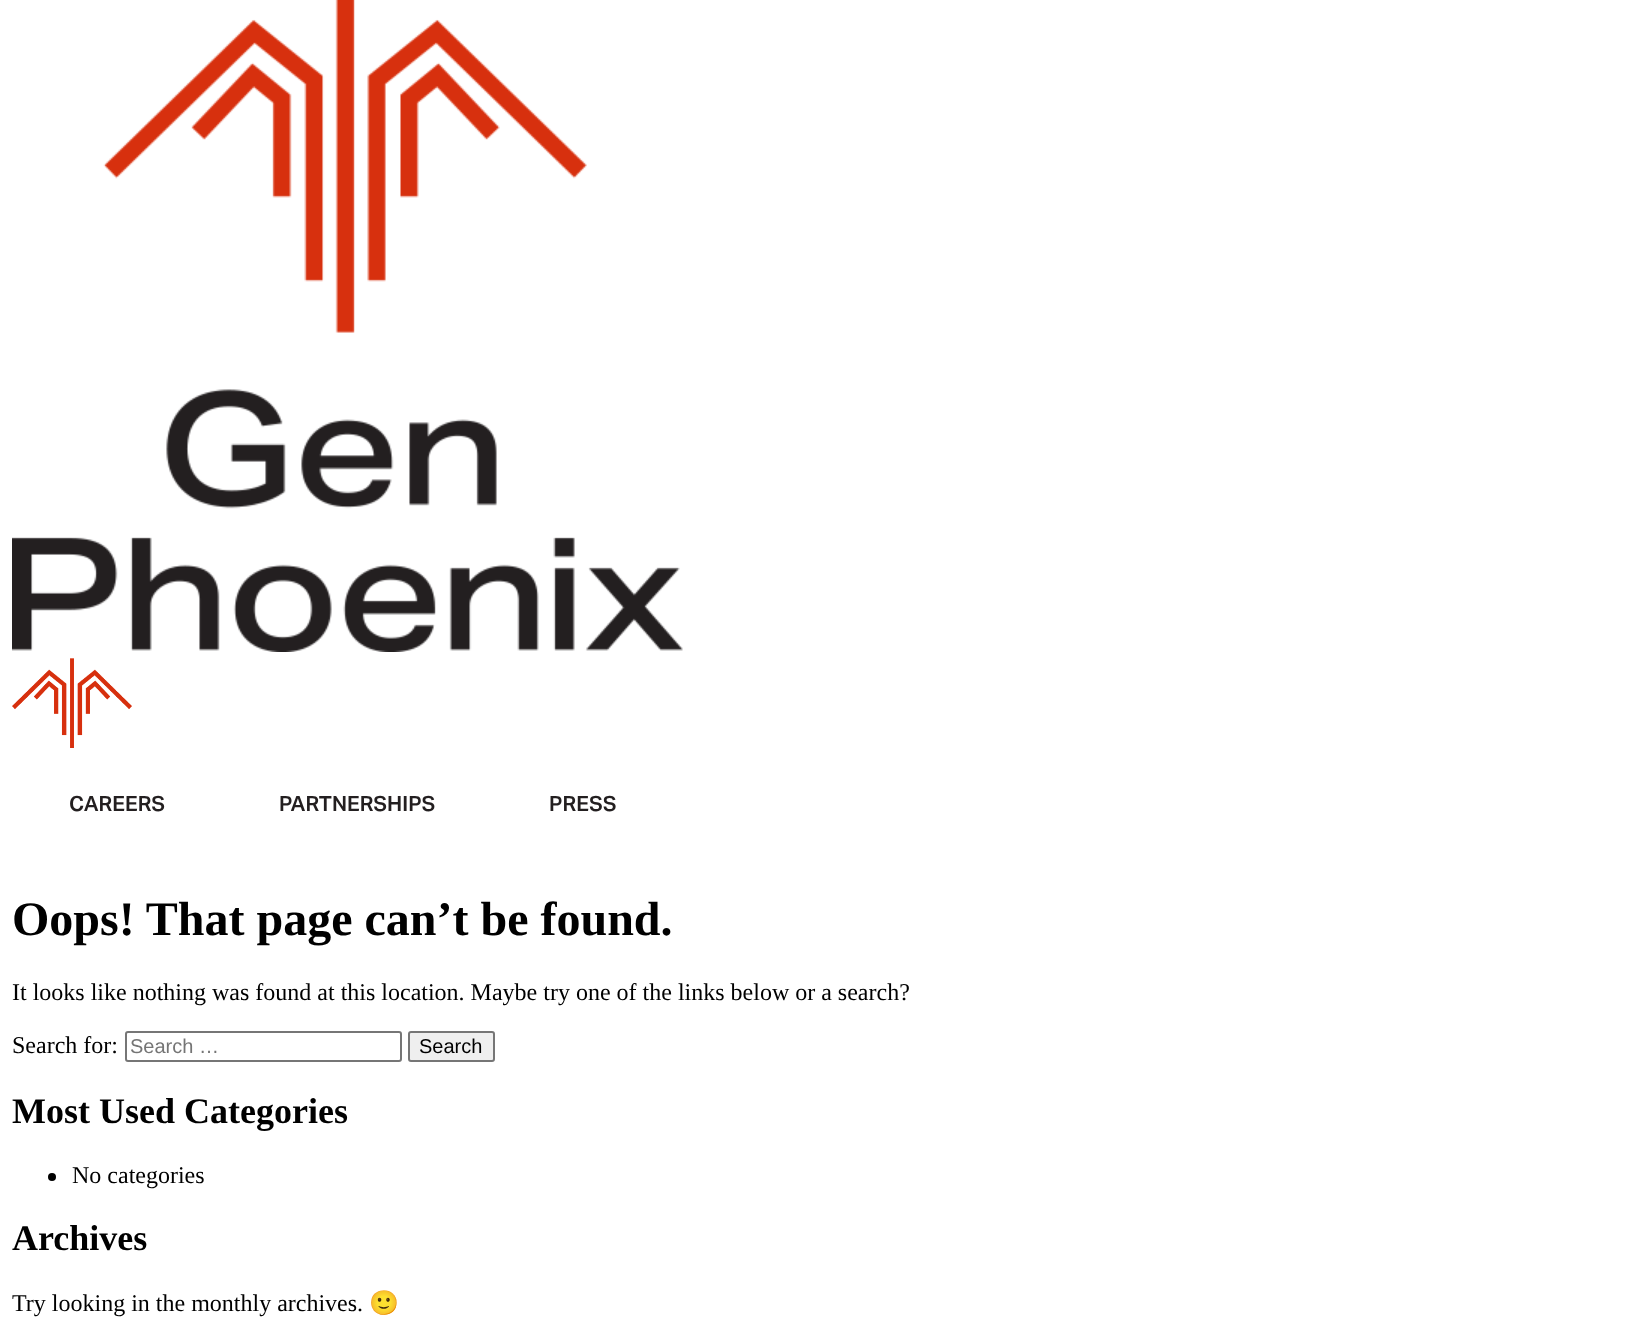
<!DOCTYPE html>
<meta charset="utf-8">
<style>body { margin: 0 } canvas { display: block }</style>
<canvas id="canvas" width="1632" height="1318"></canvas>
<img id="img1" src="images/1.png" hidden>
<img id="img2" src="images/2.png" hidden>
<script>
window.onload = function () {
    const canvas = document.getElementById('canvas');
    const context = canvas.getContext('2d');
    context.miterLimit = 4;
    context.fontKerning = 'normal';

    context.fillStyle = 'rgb(255, 255, 255)';
    context.fillRect(0, 0, 1632, 1318);
    context.drawImage(document.getElementById('img1'), 12, 0, 671, 652);
    context.drawImage(document.getElementById('img2'), 12, 658, 120, 90);
    context.beginPath();
    context.roundRect(126, 1032, 275, 29, 2);
    context.strokeStyle = 'rgb(118, 118, 118)';
    context.lineWidth = 2;
    context.stroke();
    context.fillStyle = 'rgb(239, 239, 239)';
    context.beginPath();
    context.roundRect(409, 1032, 85, 29, 2);
    context.fill();
    context.stroke();
    context.fillStyle = 'rgb(0, 0, 0)';
    context.beginPath();
    context.arc(52, 1177, 4, 0, 2 * Math.PI);
    context.fill();
    context.font = '600 21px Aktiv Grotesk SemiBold';
    context.fillStyle = 'rgb(35, 31, 32)';
    context.fillText('CAREERS', 69, 811);
    context.fillText('PARTNERSHIPS', 279, 811);
    context.fillText('PRESS', 549, 811);
    context.font = 'bold 48px Liberation Serif';
    context.fillStyle = 'rgb(0, 0, 0)';
    context.fillText('Oops! That page can’t be found.', 12, 935);
    context.font = '24px Liberation Serif';
    context.fillText('It looks like nothing was found at this location. Maybe try one of the links below or a search?', 12, 1000);
    context.fillText('Search for:', 12, 1053);
    context.font = '20px Liberation Sans';
    context.fillStyle = 'rgb(117, 117, 117)';
    context.fillText('Search …', 130, 1053);
    context.fillStyle = 'rgb(0, 0, 0)';
    context.fillText('Search', 419, 1053);
    context.font = 'bold 36px Liberation Serif';
    context.fillText('Most Used Categories', 12, 1123);
    context.font = '24px Liberation Serif';
    context.fillText('No categories', 72, 1183);
    context.font = 'bold 36px Liberation Serif';
    context.fillText('Archives', 12, 1250);
    context.font = '24px Liberation Serif';
    context.fillText('Try looking in the monthly archives.', 12, 1311);
    context.font = '24px Noto Color Emoji';
    context.fillText('🙂', 369, 1311);
};
</script>
